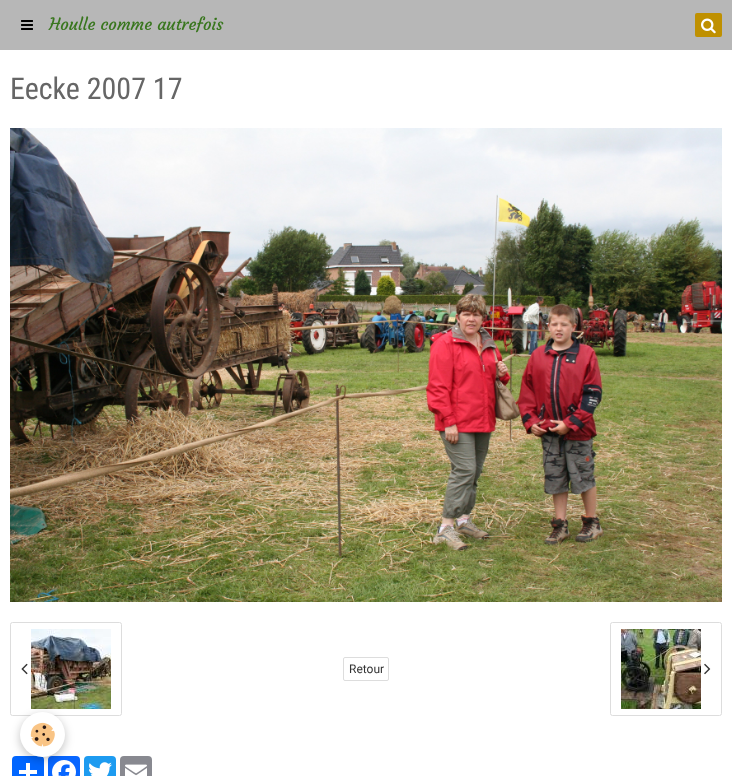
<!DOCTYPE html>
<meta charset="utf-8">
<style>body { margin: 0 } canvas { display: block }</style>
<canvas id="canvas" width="732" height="776"></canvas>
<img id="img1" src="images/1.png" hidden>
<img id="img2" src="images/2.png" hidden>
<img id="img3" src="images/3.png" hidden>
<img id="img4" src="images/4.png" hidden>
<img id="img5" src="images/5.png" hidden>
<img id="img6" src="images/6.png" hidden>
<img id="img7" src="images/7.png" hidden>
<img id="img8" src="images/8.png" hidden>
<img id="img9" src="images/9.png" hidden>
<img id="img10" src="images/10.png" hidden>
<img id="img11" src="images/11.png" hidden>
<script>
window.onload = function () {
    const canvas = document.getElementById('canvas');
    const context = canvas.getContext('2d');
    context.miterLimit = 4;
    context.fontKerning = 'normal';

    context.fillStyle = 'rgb(255, 255, 255)';
    context.fillRect(0, 0, 732, 776);
    context.fillStyle = 'rgb(183, 183, 183)';
    context.fillRect(0, 0, 732, 50);
    context.drawImage(document.getElementById('img1'), 21, 20, 12, 10);
    context.fillStyle = 'rgb(191, 144, 0)';
    context.beginPath();
    context.roundRect(695, 13, 27, 24, 2);
    context.fill();
    context.drawImage(document.getElementById('img2'), 701, 18, 15, 16);
    context.drawImage(document.getElementById('img3'), 10, 128, 712, 474);
    context.beginPath();
    context.roundRect(10.5, 622.5, 111, 93, 2);
    context.strokeStyle = 'rgb(221, 221, 221)';
    context.stroke();
    context.drawImage(document.getElementById('img4'), 21, 663, 7, 12);
    context.drawImage(document.getElementById('img5'), 31, 629, 80, 80);
    context.beginPath();
    context.roundRect(343.5, 657.5, 45, 23, 1.5);
    context.stroke();
    context.beginPath();
    context.roundRect(610.5, 622.5, 111, 93, 2);
    context.stroke();
    context.drawImage(document.getElementById('img6'), 621, 629, 80, 80);
    context.drawImage(document.getElementById('img7'), 704, 663, 7, 12);
    context.fillStyle = 'rgb(1, 102, 255)';
    context.beginPath();
    context.roundRect(12, 756, 32, 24, 4);
    context.fill();
    context.fillStyle = 'rgb(255, 255, 255)';
    context.fillRect(26, 763, 4, 13);
    context.fillRect(19, 770, 18, 4);
    context.fillStyle = 'rgb(8, 102, 255)';
    context.beginPath();
    context.roundRect(48, 756, 32, 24, 4);
    context.fill();
    context.drawImage(document.getElementById('img8'), 52, 760, 24, 16);
    context.fillStyle = 'rgb(29, 155, 240)';
    context.beginPath();
    context.roundRect(84, 756, 32, 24, 4);
    context.fill();
    context.drawImage(document.getElementById('img9'), 89, 762, 23, 14);
    context.fillStyle = 'rgb(136, 137, 144)';
    context.beginPath();
    context.roundRect(120, 756, 32, 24, 4);
    context.fill();
    context.drawImage(document.getElementById('img10'), 125, 764, 22, 12);
    context.fillStyle = 'rgba(0, 0, 0, 0.24)';
    context.filter = 'blur(5px)';
    context.beginPath();
    context.roundRect(20, 715, 45, 45, 22.5);
    context.fill();
    context.filter = 'none';
    context.fillStyle = 'rgb(255, 255, 255)';
    context.beginPath();
    context.arc(42.5, 734.5, 22.5, 0, 2 * Math.PI);
    context.fill();
    context.drawImage(document.getElementById('img11'), 30, 722, 25, 25);
    context.font = '16.75px Courgette';
    context.fillStyle = 'rgb(56, 118, 29)';
    context.fillText('Houlle comme autrefois', 49, 30);
    context.font = '30px Roboto Condensed';
    context.fillStyle = 'rgb(102, 102, 102)';
    context.fillText('Eecke 2007 17', 10, 99);
    context.font = '12px Roboto';
    context.fillStyle = 'rgb(51, 51, 51)';
    context.fillText('Retour', 349, 673);
};
</script>
